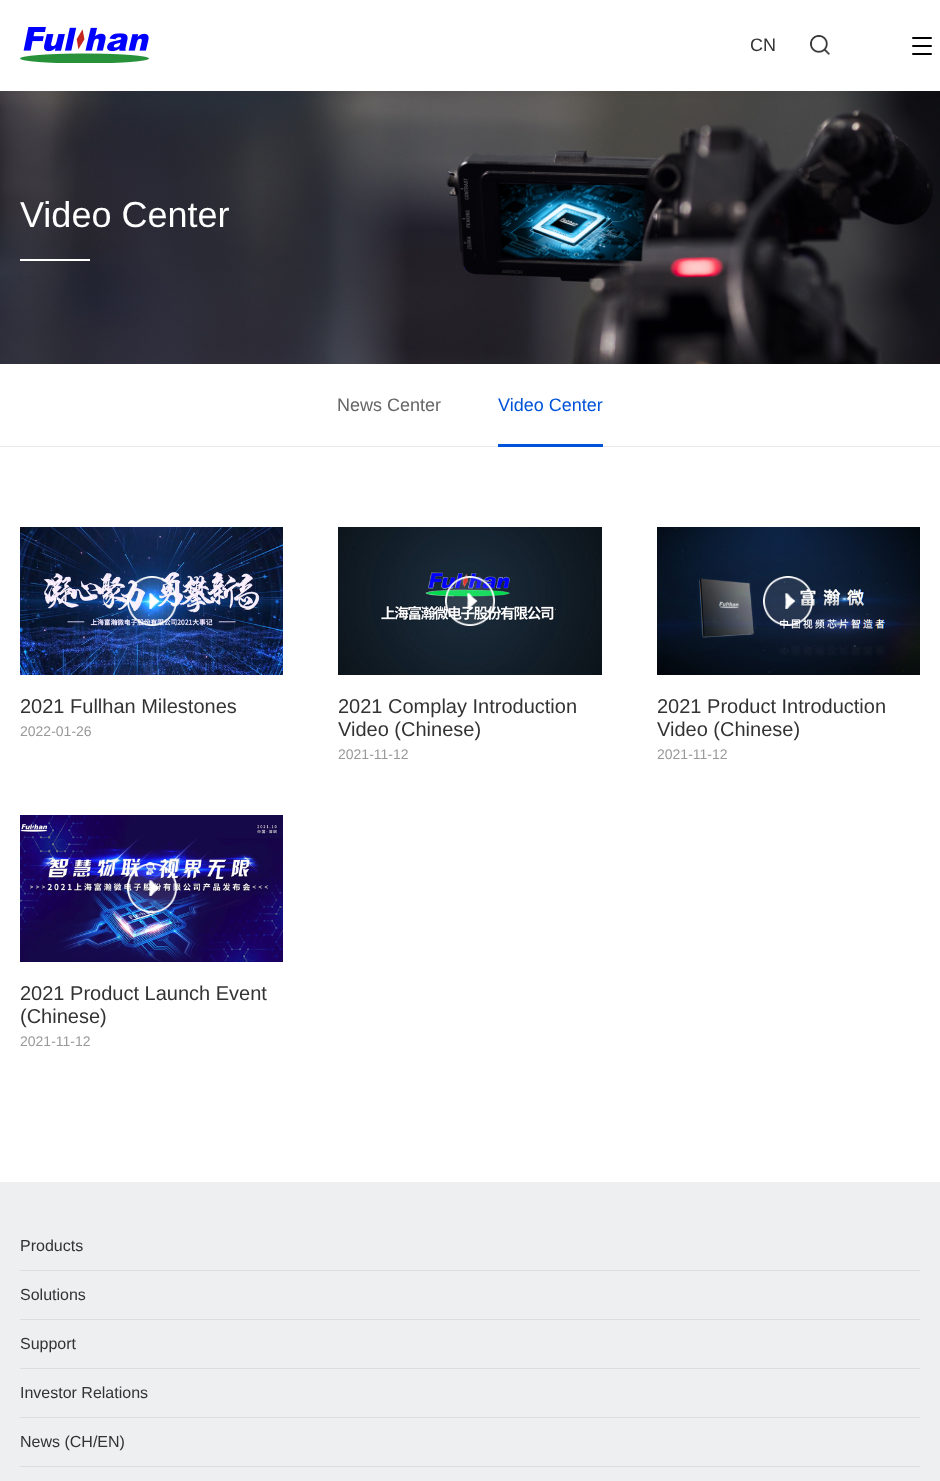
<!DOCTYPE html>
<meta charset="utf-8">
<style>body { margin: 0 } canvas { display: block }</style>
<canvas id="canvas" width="940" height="1481"></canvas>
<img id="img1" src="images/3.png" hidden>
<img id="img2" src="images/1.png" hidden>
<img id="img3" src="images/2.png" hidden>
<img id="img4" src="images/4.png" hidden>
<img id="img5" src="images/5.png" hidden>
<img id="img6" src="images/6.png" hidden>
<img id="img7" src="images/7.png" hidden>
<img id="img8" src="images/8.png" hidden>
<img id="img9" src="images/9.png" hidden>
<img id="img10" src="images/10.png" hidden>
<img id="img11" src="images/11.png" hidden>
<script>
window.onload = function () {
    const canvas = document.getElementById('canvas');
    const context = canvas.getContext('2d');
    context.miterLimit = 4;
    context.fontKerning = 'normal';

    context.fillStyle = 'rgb(255, 255, 255)';
    context.fillRect(0, 0, 940, 1481);
    context.drawImage(document.getElementById('img1'), 0, 91, 940, 273);
    context.fillStyle = 'rgba(0, 0, 0, 0.05)';
    context.filter = 'blur(5px)';
    context.beginPath();
    context.rect(0, 0, 940, 91);
    context.fill();
    context.filter = 'none';
    context.fillStyle = 'rgb(255, 255, 255)';
    context.fillRect(0, 0, 940, 91);
    context.drawImage(document.getElementById('img2'), 20, 27, 129, 36);
    context.drawImage(document.getElementById('img3'), 810, 35, 20, 20);
    context.fillStyle = 'rgb(0, 0, 0)';
    context.beginPath();
    context.roundRect(912, 37, 20, 2, 1);
    context.fill();
    context.beginPath();
    context.roundRect(912, 45, 20, 2, 1);
    context.fill();
    context.beginPath();
    context.roundRect(912, 53, 20, 2, 1);
    context.fill();
    context.fillStyle = 'rgb(255, 255, 255)';
    context.fillRect(20, 259, 70, 2);
    context.fillStyle = 'rgb(232, 233, 235)';
    context.fillRect(0, 446, 940, 1);
    context.fillStyle = 'rgb(0, 82, 217)';
    context.fillRect(498, 444, 105, 3);
    context.drawImage(document.getElementById('img4'), 20, 527, 263, 148);
    context.drawImage(document.getElementById('img5'), 127, 576, 50, 50);
    context.drawImage(document.getElementById('img6'), 338, 527, 264, 148);
    context.drawImage(document.getElementById('img7'), 445, 576, 50, 50);
    context.drawImage(document.getElementById('img8'), 657, 527, 263, 148);
    context.drawImage(document.getElementById('img9'), 763, 576, 50, 50);
    context.drawImage(document.getElementById('img10'), 20, 815, 263, 147);
    context.drawImage(document.getElementById('img11'), 127, 863, 50, 50);
    context.fillStyle = 'rgb(237, 239, 240)';
    context.fillRect(0, 1182, 940, 299);
    context.fillStyle = 'rgb(221, 221, 221)';
    context.fillRect(20, 1270, 900, 1);
    context.fillRect(20, 1319, 900, 1);
    context.fillRect(20, 1368, 900, 1);
    context.fillRect(20, 1417, 900, 1);
    context.fillRect(20, 1466, 900, 1);
    context.font = '18px Liberation Sans';
    context.fillStyle = 'rgb(51, 51, 51)';
    context.fillText('CN', 750, 51);
    context.font = '36px Liberation Sans';
    context.fillStyle = 'rgb(255, 255, 255)';
    context.fillText('Video Center', 20, 227);
    context.font = '18px Liberation Sans';
    context.fillStyle = 'rgb(102, 102, 102)';
    context.fillText('News Center', 337, 411);
    context.fillStyle = 'rgb(0, 82, 217)';
    context.fillText('Video Center', 498, 411);
    context.font = '20px Liberation Sans';
    context.fillStyle = 'rgb(51, 51, 51)';
    context.fillText('2021 Fullhan Milestones', 20, 713);
    context.font = '14px Liberation Sans';
    context.fillStyle = 'rgb(153, 153, 153)';
    context.fillText('2022-01-26', 20, 736);
    context.font = '20px Liberation Sans';
    context.fillStyle = 'rgb(51, 51, 51)';
    context.fillText('2021 Complay Introduction', 338, 713);
    context.fillText('Video (Chinese)', 338, 736);
    context.font = '14px Liberation Sans';
    context.fillStyle = 'rgb(153, 153, 153)';
    context.fillText('2021-11-12', 338, 759);
    context.font = '20px Liberation Sans';
    context.fillStyle = 'rgb(51, 51, 51)';
    context.fillText('2021 Product Introduction', 657, 713);
    context.fillText('Video (Chinese)', 657, 736);
    context.font = '14px Liberation Sans';
    context.fillStyle = 'rgb(153, 153, 153)';
    context.fillText('2021-11-12', 657, 759);
    context.font = '20px Liberation Sans';
    context.fillStyle = 'rgb(51, 51, 51)';
    context.fillText('2021 Product Launch Event', 20, 1000);
    context.fillText('(Chinese)', 20, 1023);
    context.font = '14px Liberation Sans';
    context.fillStyle = 'rgb(153, 153, 153)';
    context.fillText('2021-11-12', 20, 1046);
    context.font = '16px Liberation Sans';
    context.fillStyle = 'rgb(51, 51, 51)';
    context.fillText('Products', 20, 1251);
    context.fillText('Solutions', 20, 1300);
    context.fillText('Support', 20, 1349);
    context.fillText('Investor Relations', 20, 1398);
    context.fillText('News (CH/EN)', 20, 1447);
};
</script>
